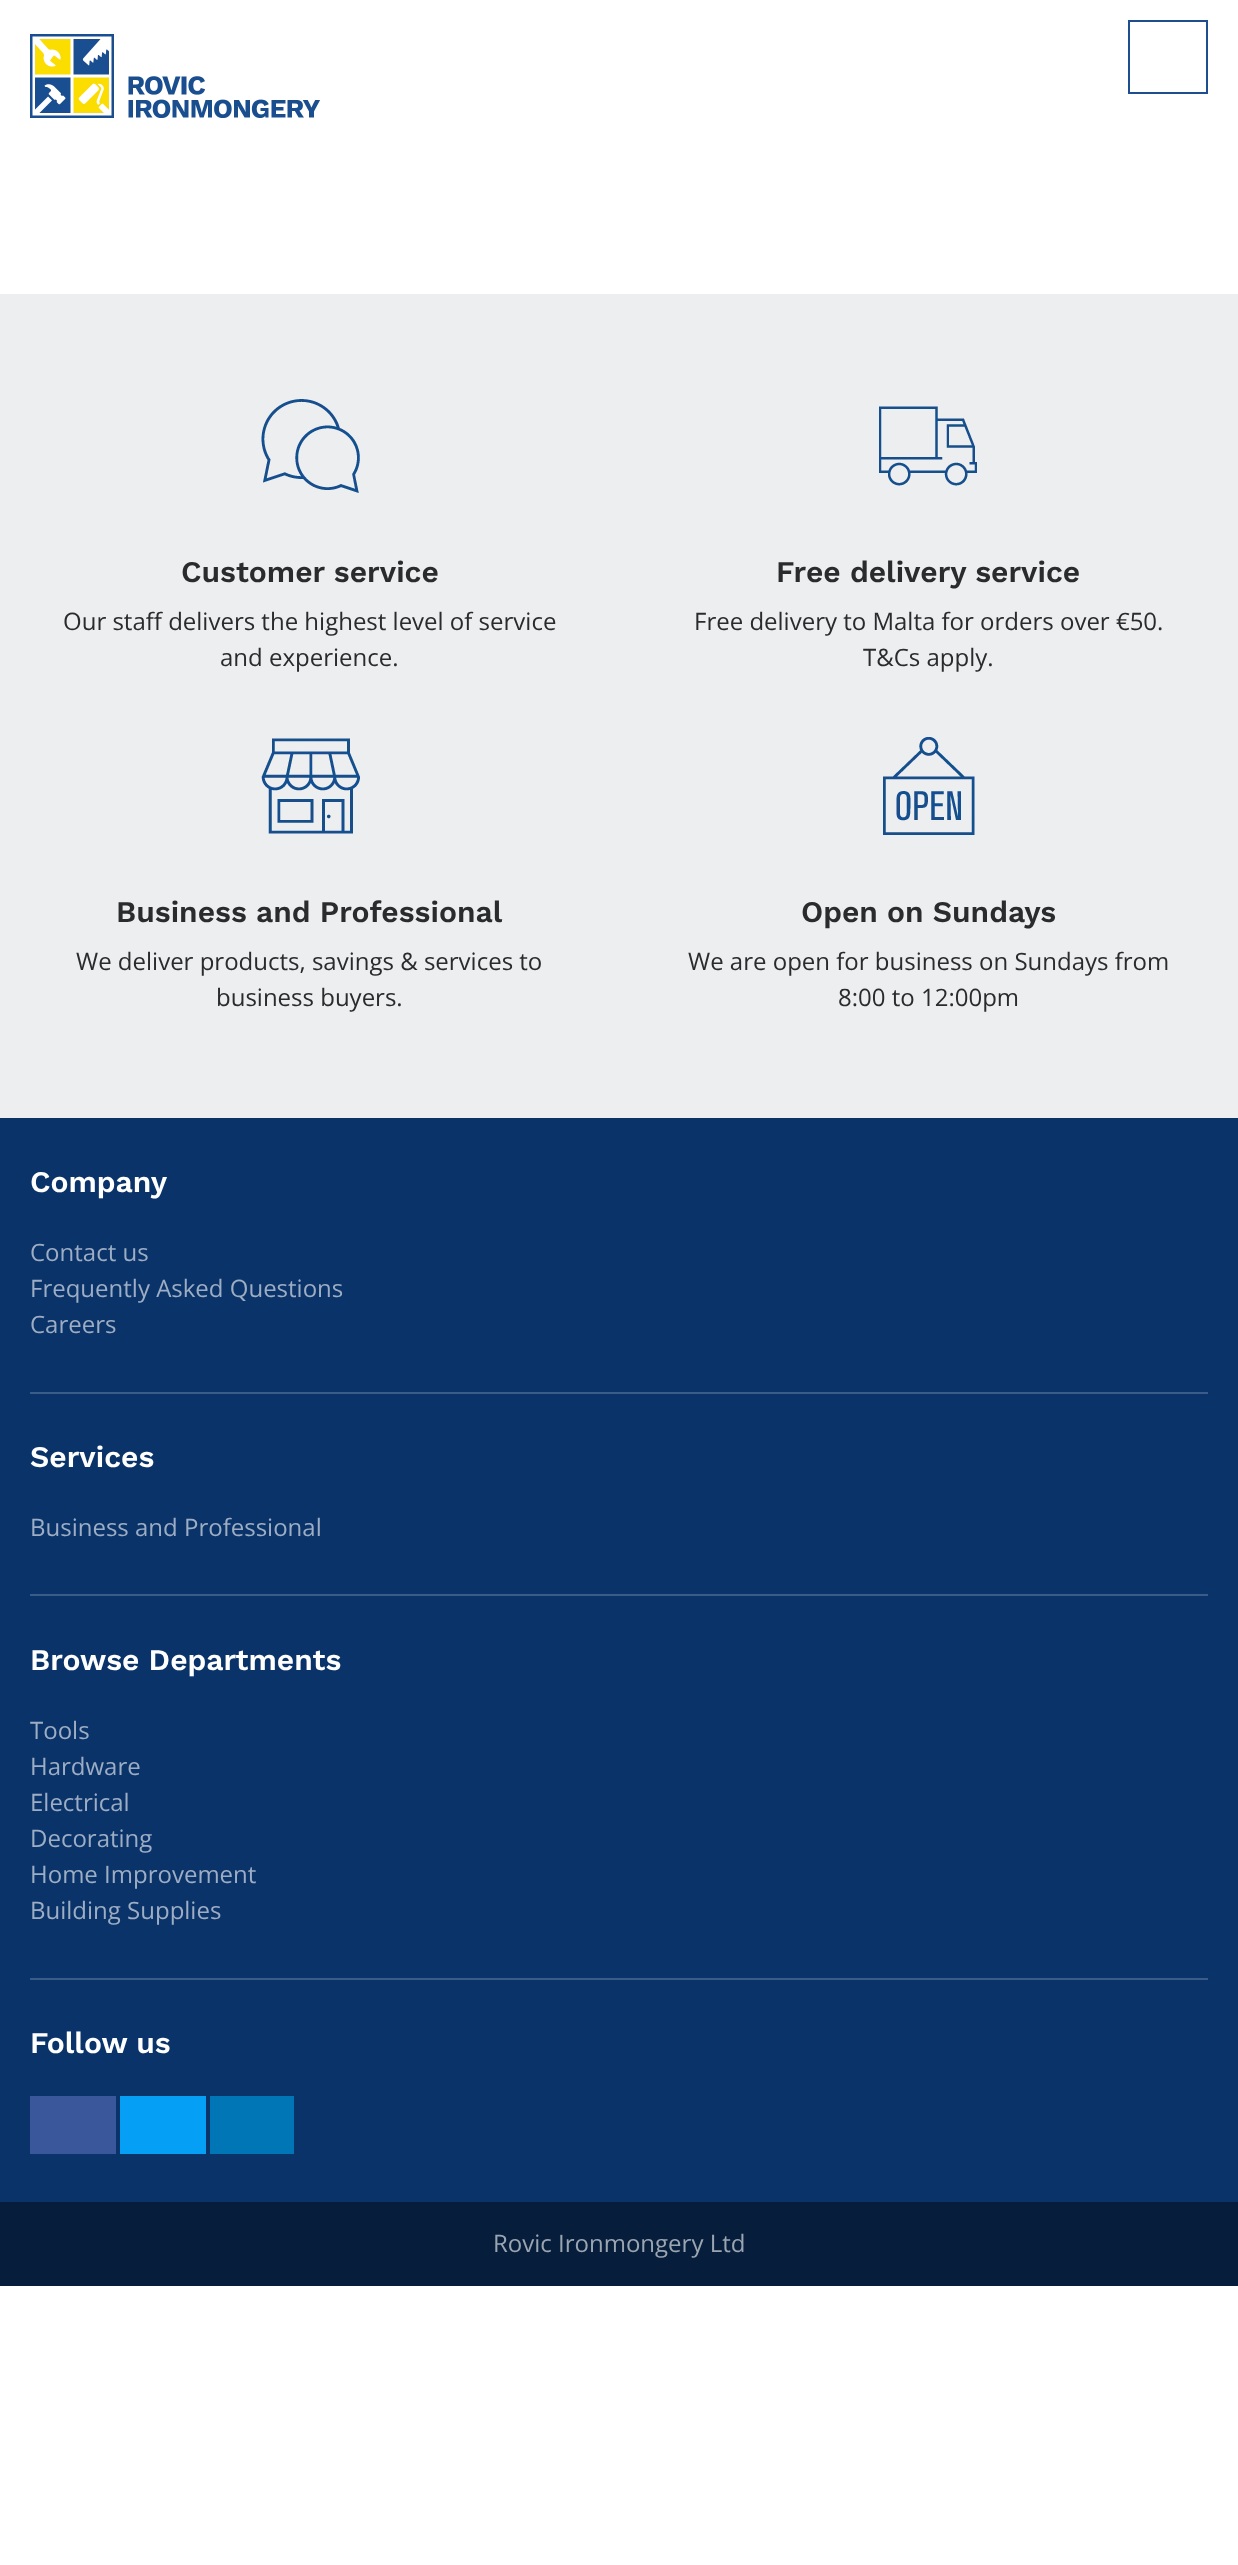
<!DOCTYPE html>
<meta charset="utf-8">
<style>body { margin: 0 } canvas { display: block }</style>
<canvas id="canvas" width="1238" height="2565"></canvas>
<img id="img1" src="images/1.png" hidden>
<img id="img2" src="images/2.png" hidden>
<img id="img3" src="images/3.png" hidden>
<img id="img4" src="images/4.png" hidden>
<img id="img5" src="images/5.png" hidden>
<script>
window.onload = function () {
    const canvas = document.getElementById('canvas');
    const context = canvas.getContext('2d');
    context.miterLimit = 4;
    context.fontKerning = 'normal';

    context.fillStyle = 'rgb(255, 255, 255)';
    context.fillRect(0, 0, 1238, 2565);
    context.drawImage(document.getElementById('img1'), 30, 34, 290, 84);
    context.strokeStyle = 'rgb(29, 78, 143)';
    context.lineWidth = 2;
    context.strokeRect(1129, 21, 78, 72);
    context.fillStyle = 'rgb(236, 238, 239)';
    context.fillRect(0, 294, 1238, 824);
    context.drawImage(document.getElementById('img2'), 261, 399, 99, 94);
    context.drawImage(document.getElementById('img3'), 879, 406, 98, 80);
    context.drawImage(document.getElementById('img4'), 261, 738, 99, 96);
    context.drawImage(document.getElementById('img5'), 883, 737, 92, 98);
    context.fillStyle = 'rgb(10, 51, 106)';
    context.fillRect(0, 1118, 1238, 1084);
    context.fillStyle = 'rgb(59, 92, 136)';
    context.fillRect(30, 1392, 1178, 2);
    context.fillRect(30, 1594, 1178, 2);
    context.fillRect(30, 1978, 1178, 2);
    context.fillStyle = 'rgb(57, 87, 154)';
    context.fillRect(30, 2096, 86, 58);
    context.fillStyle = 'rgb(5, 159, 245)';
    context.fillRect(120, 2096, 86, 58);
    context.fillStyle = 'rgb(0, 118, 183)';
    context.fillRect(210, 2096, 84, 58);
    context.fillStyle = 'rgb(6, 29, 59)';
    context.fillRect(0, 2202, 1238, 84);
    context.font = '600 30px Work Sans';
    context.fillStyle = 'rgb(41, 43, 44)';
    context.fillText('Customer service', 181, 582);
    context.font = '24px Open Sans';
    context.fillText('Our staff delivers the highest level of service', 63, 630);
    context.fillText('and experience.', 220, 666);
    context.font = '600 30px Work Sans';
    context.fillText('Free delivery service', 776, 582);
    context.font = '24px Open Sans';
    context.fillText('Free delivery to Malta for orders over €50.', 694, 630);
    context.fillText('T&Cs apply.', 863, 666);
    context.font = '600 30px Work Sans';
    context.fillText('Business and Professional', 116, 922);
    context.font = '24px Open Sans';
    context.fillText('We deliver products, savings & services to', 76, 970);
    context.fillText('business buyers.', 216, 1006);
    context.font = '600 30px Work Sans';
    context.fillText('Open on Sundays', 801, 922);
    context.font = '24px Open Sans';
    context.fillText('We are open for business on Sundays from', 688, 970);
    context.fillText('8:00 to 12:00pm', 838, 1006);
    context.font = '600 30px Work Sans';
    context.fillStyle = 'rgb(255, 255, 255)';
    context.fillText('Company', 30, 1192);
    context.font = '24px Open Sans';
    context.fillStyle = 'rgb(157, 173, 195)';
    context.fillText('Contact us', 30, 1261);
    context.fillText('Frequently Asked Questions', 30, 1297);
    context.fillText('Careers', 30, 1333);
    context.font = '600 30px Work Sans';
    context.fillStyle = 'rgb(255, 255, 255)';
    context.fillText('Services', 30, 1467);
    context.font = '24px Open Sans';
    context.fillStyle = 'rgb(157, 173, 195)';
    context.fillText('Business and Professional', 30, 1536);
    context.font = '600 30px Work Sans';
    context.fillStyle = 'rgb(255, 255, 255)';
    context.fillText('Browse Departments', 30, 1670);
    context.font = '24px Open Sans';
    context.fillStyle = 'rgb(157, 173, 195)';
    context.fillText('Tools', 30, 1739);
    context.fillText('Hardware', 30, 1775);
    context.fillText('Electrical', 30, 1811);
    context.fillText('Decorating', 30, 1847);
    context.fillText('Home Improvement', 30, 1883);
    context.fillText('Building Supplies', 30, 1919);
    context.font = '600 30px Work Sans';
    context.fillStyle = 'rgb(255, 255, 255)';
    context.fillText('Follow us', 30, 2053);
    context.font = '24px Open Sans';
    context.fillStyle = 'rgb(155, 165, 177)';
    context.fillText('Rovic Ironmongery Ltd', 493, 2252);
};
</script>
